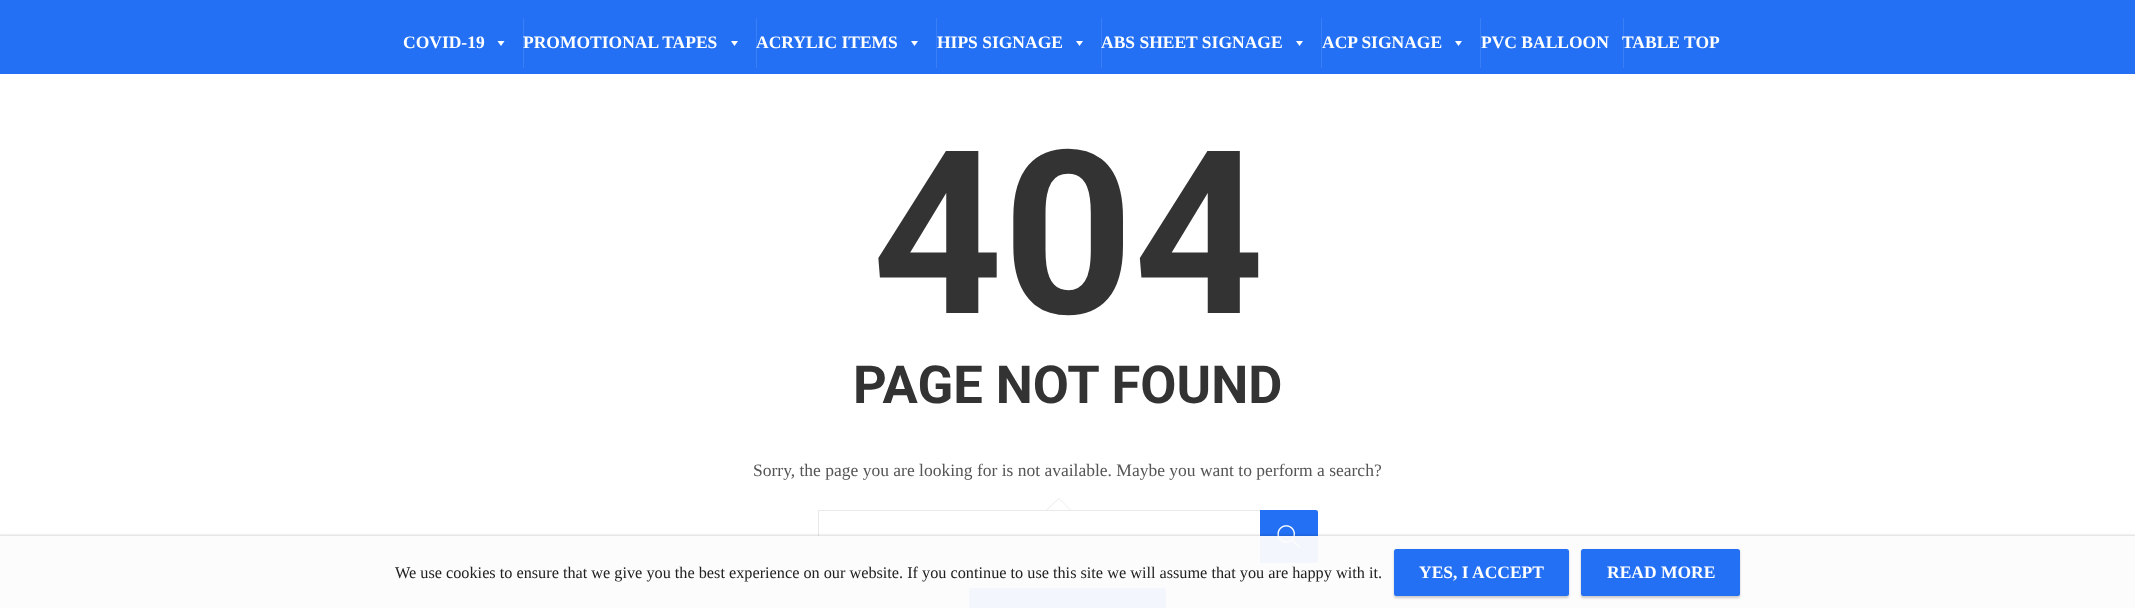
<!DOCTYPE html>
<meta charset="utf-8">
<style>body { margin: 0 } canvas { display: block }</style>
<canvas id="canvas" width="2135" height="608"></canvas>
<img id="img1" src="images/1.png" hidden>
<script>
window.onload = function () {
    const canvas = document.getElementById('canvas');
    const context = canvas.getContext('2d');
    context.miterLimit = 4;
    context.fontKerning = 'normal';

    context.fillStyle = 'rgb(255, 255, 255)';
    context.fillRect(0, 0, 2135, 608);
    context.fillStyle = 'rgb(35, 112, 244)';
    context.fillRect(0, 0, 2135, 74);
    context.fillStyle = 'rgb(255, 255, 255)';
    context.beginPath();
    context.moveTo(504.5, 41);
    context.lineTo(501, 46);
    context.lineTo(497.5, 41);
    context.closePath();
    context.fill();
    context.fillStyle = 'rgb(57, 126, 245)';
    context.fillRect(523, 18, 1, 50);
    context.fillStyle = 'rgb(255, 255, 255)';
    context.beginPath();
    context.moveTo(738, 41);
    context.lineTo(734.5, 46);
    context.lineTo(731, 41);
    context.closePath();
    context.fill();
    context.fillStyle = 'rgb(57, 126, 245)';
    context.fillRect(756, 18, 1, 50);
    context.fillStyle = 'rgb(255, 255, 255)';
    context.beginPath();
    context.moveTo(918, 41);
    context.lineTo(914.5, 46);
    context.lineTo(911, 41);
    context.closePath();
    context.fill();
    context.fillStyle = 'rgb(57, 126, 245)';
    context.fillRect(936, 18, 1, 50);
    context.fillStyle = 'rgb(255, 255, 255)';
    context.beginPath();
    context.moveTo(1083, 41);
    context.lineTo(1079.5, 46);
    context.lineTo(1076, 41);
    context.closePath();
    context.fill();
    context.fillStyle = 'rgb(57, 126, 245)';
    context.fillRect(1101, 18, 1, 50);
    context.fillStyle = 'rgb(255, 255, 255)';
    context.beginPath();
    context.moveTo(1303, 41);
    context.lineTo(1299.5, 46);
    context.lineTo(1296, 41);
    context.closePath();
    context.fill();
    context.fillStyle = 'rgb(57, 126, 245)';
    context.fillRect(1321, 18, 1, 50);
    context.fillStyle = 'rgb(255, 255, 255)';
    context.beginPath();
    context.moveTo(1462, 41);
    context.lineTo(1458.5, 46);
    context.lineTo(1455, 41);
    context.closePath();
    context.fill();
    context.fillStyle = 'rgb(57, 126, 245)';
    context.fillRect(1480, 18, 1, 50);
    context.fillRect(1623, 18, 1, 50);
    context.fillStyle = 'rgb(240, 240, 240)';
    context.beginPath();
    context.moveTo(1071, 510);
    context.lineTo(1046, 510);
    context.lineTo(1059, 497.5);
    context.closePath();
    context.fill();
    context.fillStyle = 'rgb(255, 255, 255)';
    context.beginPath();
    context.moveTo(1070, 510);
    context.lineTo(1047.5, 510);
    context.lineTo(1059, 499);
    context.closePath();
    context.fill();
    context.strokeStyle = 'rgb(233, 233, 233)';
    context.strokeRect(818.5, 510.5, 499, 52);
    context.fillStyle = 'rgb(35, 112, 244)';
    context.beginPath();
    context.roundRect(1260, 510, 58, 53, [0, 2.5, 2.5, 0]);
    context.fill();
    context.drawImage(document.getElementById('img1'), 1277, 525, 23, 23);
    context.fillStyle = 'rgba(0, 0, 0, 0.2)';
    context.filter = 'blur(1px)';
    context.beginPath();
    context.roundRect(969, 589, 197, 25, 2.5);
    context.fill();
    context.filter = 'none';
    context.fillStyle = 'rgb(35, 112, 244)';
    context.beginPath();
    context.roundRect(969, 588, 197, 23, 2.5);
    context.fill();
    context.save();
    context.beginPath();
    context.moveTo(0, 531);
    context.lineTo(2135, 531);
    context.lineTo(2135, 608);
    context.lineTo(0, 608);
    context.closePath();
    context.moveTo(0, 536);
    context.lineTo(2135, 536);
    context.lineTo(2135, 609);
    context.lineTo(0, 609);
    context.closePath();
    context.clip('evenodd');
    context.fillStyle = 'rgba(0, 0, 0, 0.15)';
    context.filter = 'blur(1px)';
    context.beginPath();
    context.rect(-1, 535, 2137, 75);
    context.fill();
    context.filter = 'none';
    context.restore();
    context.fillStyle = 'rgba(252, 252, 252, 0.96)';
    context.fillRect(0, 536, 2135, 72);
    context.fillStyle = 'rgba(0, 0, 0, 0.2)';
    context.filter = 'blur(1px)';
    context.beginPath();
    context.roundRect(1394, 550, 175, 48, 2.5);
    context.fill();
    context.filter = 'none';
    context.fillStyle = 'rgb(35, 112, 244)';
    context.beginPath();
    context.roundRect(1394, 549, 175, 47, 2.5);
    context.fill();
    context.fillStyle = 'rgba(0, 0, 0, 0.2)';
    context.filter = 'blur(1px)';
    context.beginPath();
    context.roundRect(1581, 550, 159, 48, 2.5);
    context.fill();
    context.filter = 'none';
    context.fillStyle = 'rgb(35, 112, 244)';
    context.beginPath();
    context.roundRect(1581, 549, 159, 47, 2.5);
    context.fill();
    context.font = 'bold 17.5px Liberation Serif';
    context.fillStyle = 'rgb(255, 255, 255)';
    context.fillText('COVID-19', 403, 48);
    context.fillText('PROMOTIONAL TAPES', 523, 48);
    context.fillText('ACRYLIC ITEMS', 756, 48);
    context.fillText('HIPS SIGNAGE', 937, 48);
    context.fillText('ABS SHEET SIGNAGE', 1101, 48);
    context.fillText('ACP SIGNAGE', 1322, 48);
    context.fillText('PVC BALLOON', 1481, 48);
    context.fillText('TABLE TOP', 1622, 48);
    context.font = 'bold 228px Roboto';
    context.fillStyle = 'rgb(51, 51, 51)';
    context.fillText('404', 872, 313);
    context.font = 'bold 52.5px Roboto';
    context.fillText('PAGE NOT FOUND', 853, 403);
    context.font = '17.5px Liberation Serif';
    context.fillStyle = 'rgb(85, 85, 85)';
    context.fillText('Sorry, the page you are looking for is not available. Maybe you want to perform a search?', 753, 476);
    context.font = '16.25px Liberation Serif';
    context.fillStyle = 'rgb(33, 33, 33)';
    context.fillText('We use cookies to ensure that we give you the best experience on our website. If you continue to use this site we will assume that you are happy with it.', 395, 578);
    context.font = 'bold 17.5px Liberation Serif';
    context.fillStyle = 'rgb(255, 255, 255)';
    context.fillText('YES, I ACCEPT', 1419, 578);
    context.fillText('READ MORE', 1607, 578);
};
</script>
